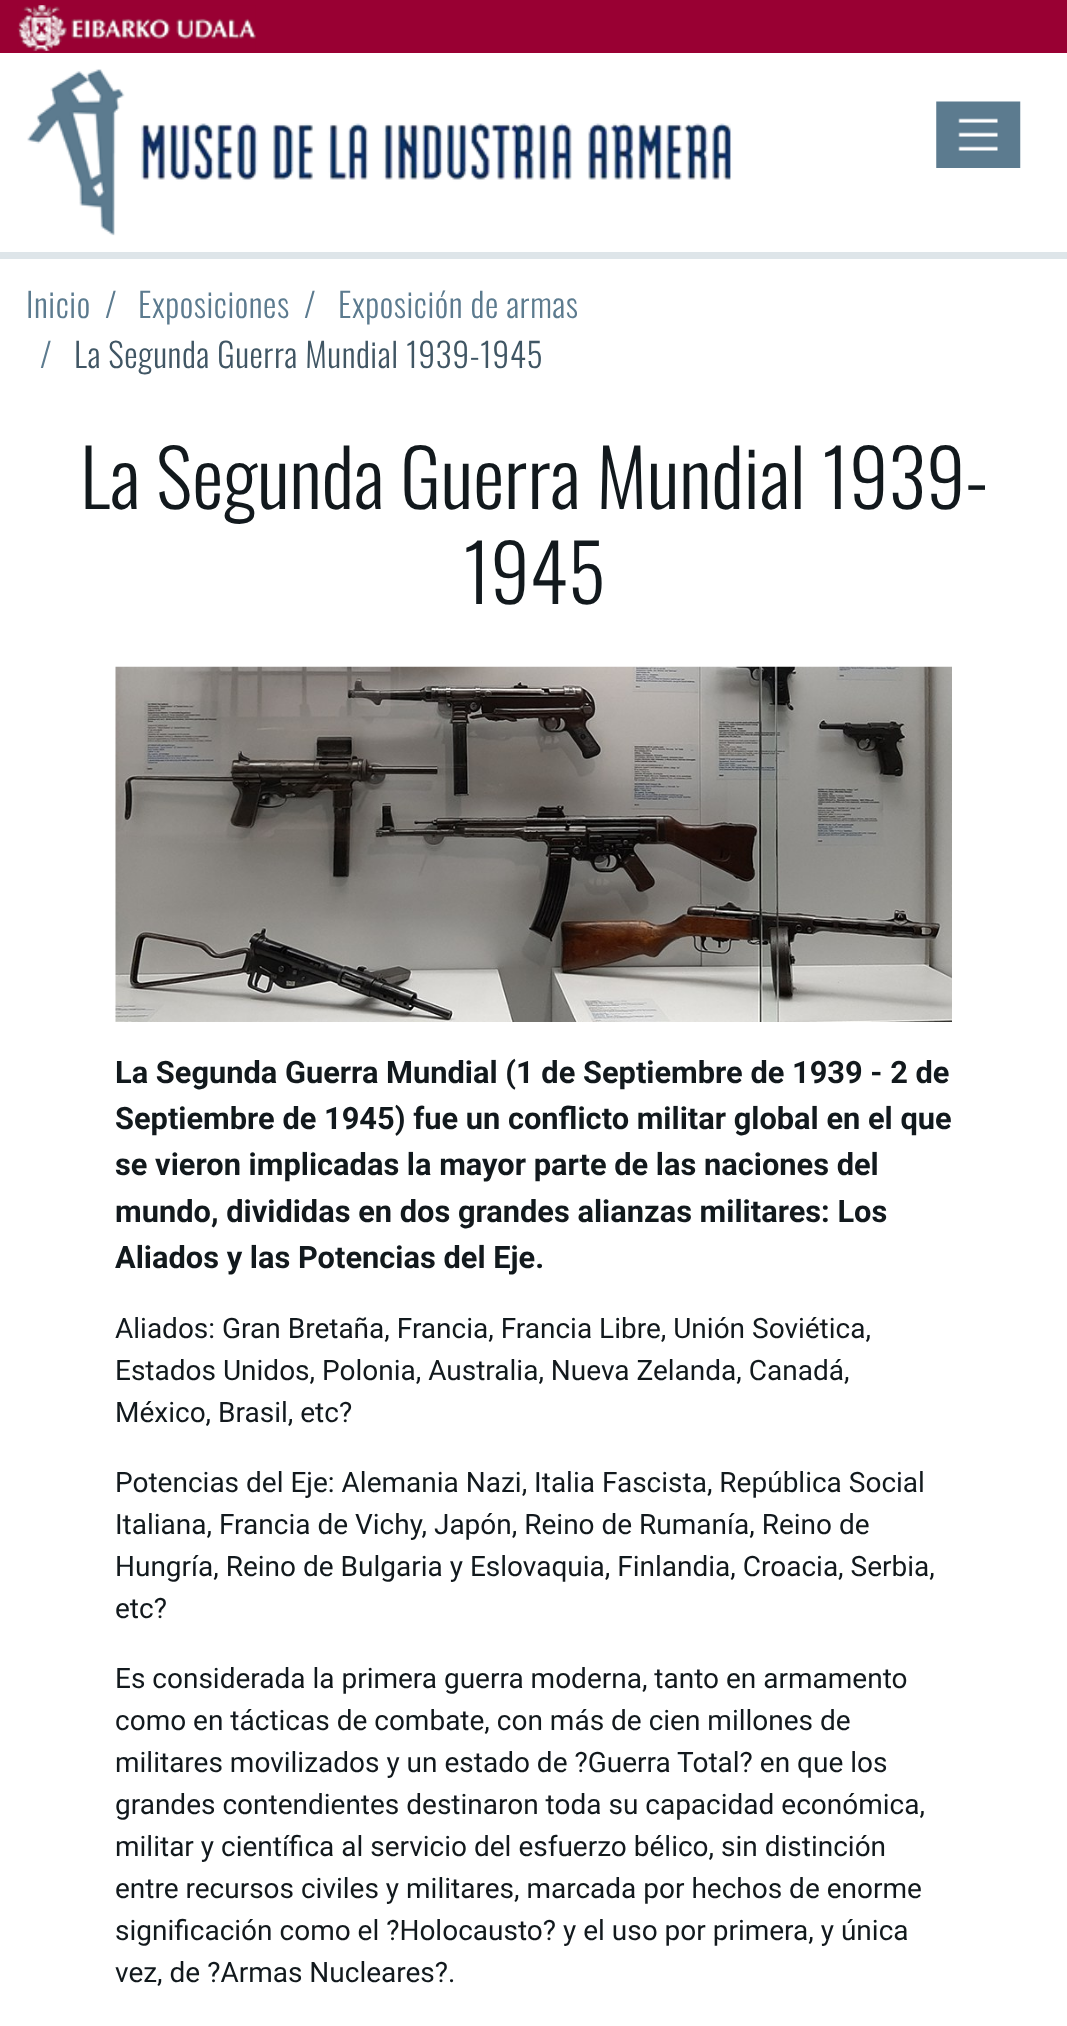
<!DOCTYPE html>
<meta charset="utf-8">
<style>body { margin: 0 } canvas { display: block }</style>
<canvas id="canvas" width="1067" height="2026"></canvas>
<img id="img1" src="images/1.png" hidden>
<img id="img2" src="images/2.png" hidden>
<img id="img3" src="images/3.png" hidden>
<img id="img4" src="images/4.png" hidden>
<script>
window.onload = function () {
    const canvas = document.getElementById('canvas');
    const context = canvas.getContext('2d');
    context.miterLimit = 4;
    context.fontKerning = 'normal';

    context.fillStyle = 'rgb(255, 255, 255)';
    context.fillRect(0, 0, 1067, 2026);
    context.fillStyle = 'rgb(222, 229, 233)';
    context.fillRect(0, 252, 1067, 7);
    context.fillStyle = 'rgb(153, 0, 51)';
    context.fillRect(0, 0, 1067, 53);
    context.drawImage(document.getElementById('img1'), 17, 5, 239, 46);
    context.drawImage(document.getElementById('img2'), 27, 69, 704, 167);
    context.drawImage(document.getElementById('img3'), 936, 101, 85, 67);
    context.drawImage(document.getElementById('img4'), 115, 666, 837, 356);
    context.letterSpacing = '0.55px';
    context.font = '300 33.6px Oswald';
    context.fillStyle = 'rgb(92, 123, 143)';
    context.fillText('Inicio', 26, 318);
    context.fillText('/', 105, 318);
    context.fillText('Exposiciones', 138, 318);
    context.fillText('/', 304, 318);
    context.fillText('Exposición de armas', 338, 318);
    context.fillText('/', 40, 368);
    context.fillStyle = 'rgb(64, 86, 100)';
    context.fillText('La Segunda Guerra Mundial 1939-1945', 74, 368);
    context.letterSpacing = '0px';
    context.font = '300 78.4px Oswald';
    context.fillStyle = 'rgb(18, 25, 29)';
    context.fillText('La Segunda Guerra Mundial 1939-', 80, 509);
    context.fillText('1945', 463, 604);
    context.font = 'bold 30.8px Roboto';
    context.fillText('La Segunda Guerra Mundial (1 de Septiembre de 1939 - 2 de', 115, 1083);
    context.fillText('Septiembre de 1945) fue un conflicto militar global en el que', 115, 1129);
    context.fillText('se vieron implicadas la mayor parte de las naciones del', 115, 1175);
    context.fillText('mundo, divididas en dos grandes alianzas militares: Los', 115, 1222);
    context.fillText('Aliados y las Potencias del Eje.', 115, 1268);
    context.font = '28px Roboto';
    context.fillText('Aliados: Gran Bretaña, Francia, Francia Libre, Unión Soviética,', 115, 1338);
    context.fillText('Estados Unidos, Polonia, Australia, Nueva Zelanda, Canadá,', 115, 1380);
    context.fillText('México, Brasil, etc?', 115, 1422);
    context.fillText('Potencias del Eje: Alemania Nazi, Italia Fascista, República Social', 115, 1492);
    context.fillText('Italiana, Francia de Vichy, Japón, Reino de Rumanía, Reino de', 115, 1534);
    context.fillText('Hungría, Reino de Bulgaria y Eslovaquia, Finlandia, Croacia, Serbia,', 115, 1576);
    context.fillText('etc?', 115, 1618);
    context.fillText('Es considerada la primera guerra moderna, tanto en armamento', 115, 1688);
    context.fillText('como en tácticas de combate, con más de cien millones de', 115, 1730);
    context.fillText('militares movilizados y un estado de ?Guerra Total? en que los', 115, 1772);
    context.fillText('grandes contendientes destinaron toda su capacidad económica,', 115, 1814);
    context.fillText('militar y científica al servicio del esfuerzo bélico, sin distinción', 115, 1856);
    context.fillText('entre recursos civiles y militares, marcada por hechos de enorme', 115, 1898);
    context.fillText('significación como el ?Holocausto? y el uso por primera, y única', 115, 1940);
    context.fillText('vez, de ?Armas Nucleares?.', 115, 1982);
};
</script>
